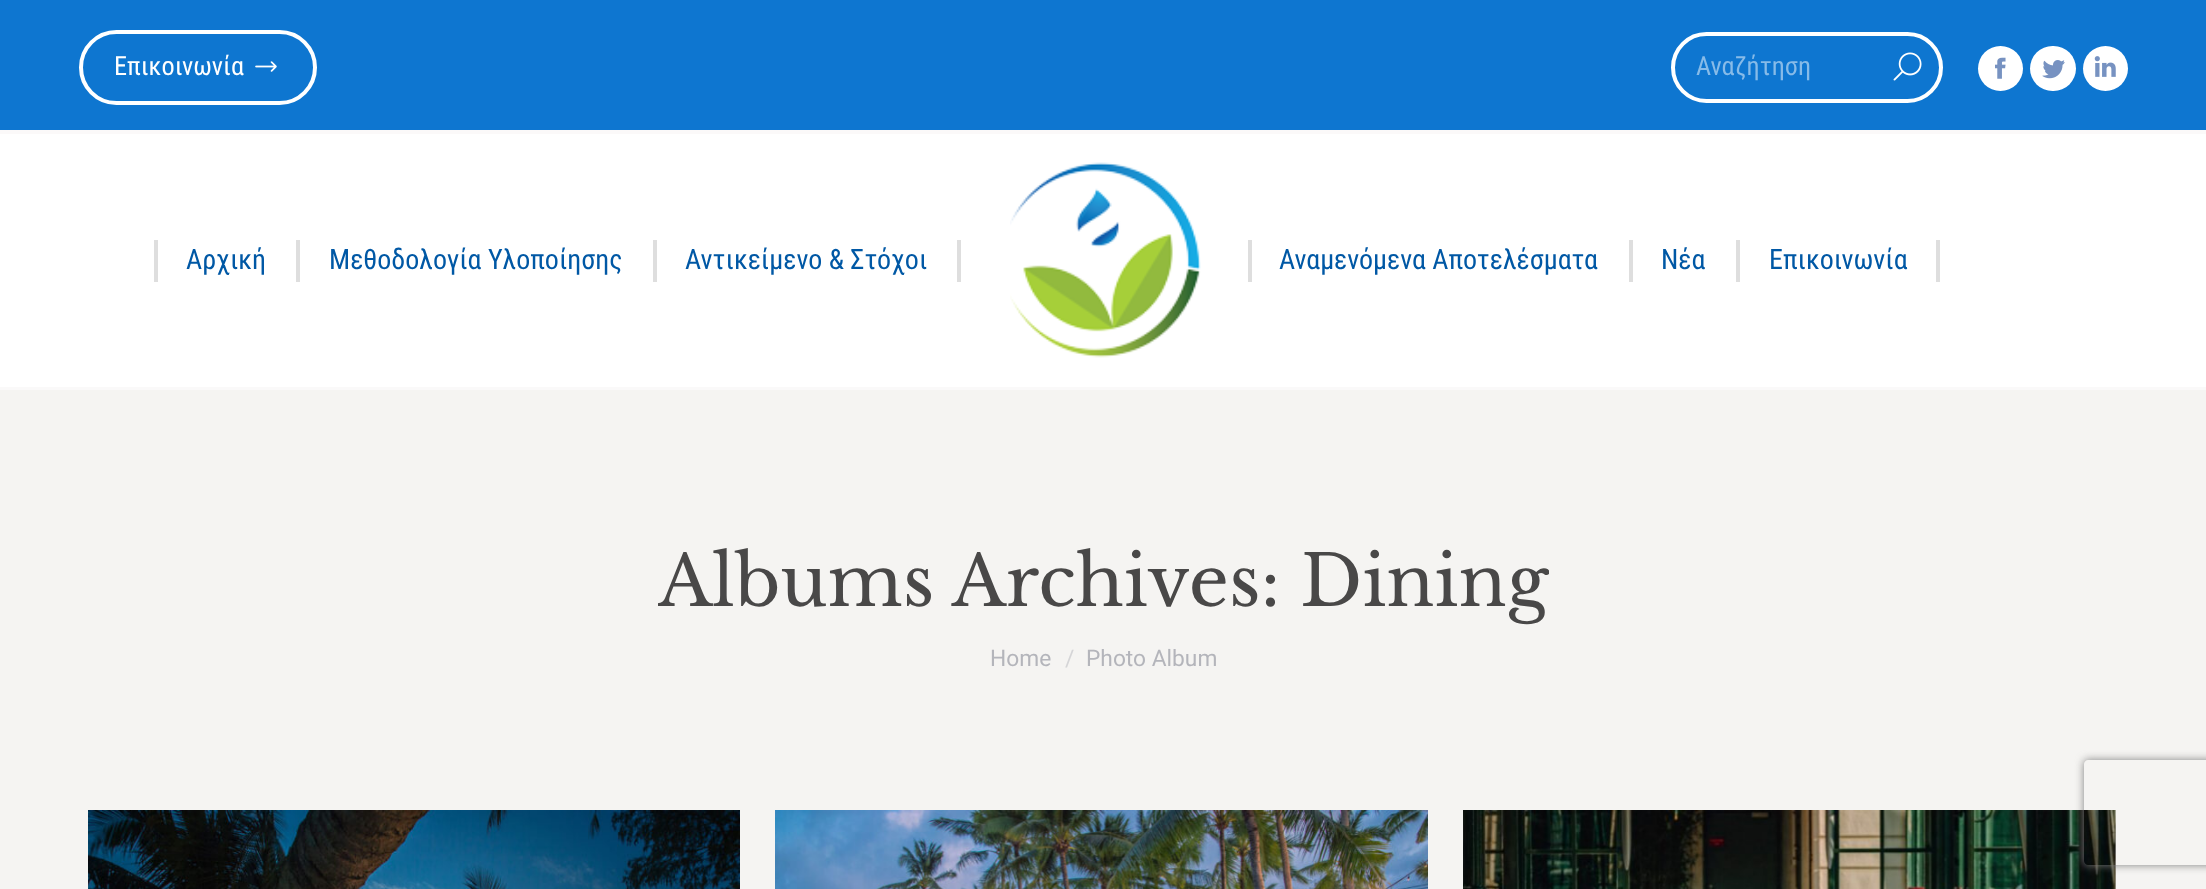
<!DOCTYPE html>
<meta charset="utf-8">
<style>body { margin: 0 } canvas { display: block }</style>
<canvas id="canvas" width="2206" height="889"></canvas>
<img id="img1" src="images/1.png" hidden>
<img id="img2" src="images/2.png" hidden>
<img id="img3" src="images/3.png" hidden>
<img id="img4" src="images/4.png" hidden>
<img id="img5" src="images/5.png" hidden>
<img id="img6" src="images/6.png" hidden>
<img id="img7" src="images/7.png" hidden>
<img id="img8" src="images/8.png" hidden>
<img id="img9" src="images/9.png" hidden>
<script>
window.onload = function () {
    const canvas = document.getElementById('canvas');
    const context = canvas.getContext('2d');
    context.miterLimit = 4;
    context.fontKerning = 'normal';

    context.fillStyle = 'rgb(245, 244, 242)';
    context.fillRect(0, 0, 2206, 889);
    context.fillStyle = 'rgb(14, 118, 208)';
    context.fillRect(0, 0, 2206, 130);
    context.beginPath();
    context.roundRect(81, 32, 234, 71, 35.5);
    context.strokeStyle = 'rgb(255, 255, 255)';
    context.lineWidth = 4;
    context.stroke();
    context.drawImage(document.getElementById('img1'), 255, 61, 22, 11);
    context.beginPath();
    context.roundRect(1673, 34, 268, 67, 33.5);
    context.stroke();
    context.drawImage(document.getElementById('img2'), 1893, 52, 29, 29);
    context.fillStyle = 'rgb(255, 255, 255)';
    context.beginPath();
    context.arc(2000.5, 68.5, 22.5, 0, 2 * Math.PI);
    context.fill();
    context.drawImage(document.getElementById('img3'), 1995, 57, 11, 22);
    context.beginPath();
    context.roundRect(2030, 46, 46, 45, 22.5);
    context.fill();
    context.drawImage(document.getElementById('img4'), 2042, 60, 23, 19);
    context.beginPath();
    context.arc(2105.5, 68.5, 22.5, 0, 2 * Math.PI);
    context.fill();
    context.drawImage(document.getElementById('img5'), 2094, 56, 22, 21);
    context.fillRect(0, 134, 2206, 256);
    context.fillStyle = 'rgb(251, 249, 249)';
    context.fillRect(0, 130, 2206, 4);
    context.fillStyle = 'rgba(241, 237, 237, 0.32)';
    context.fillRect(0, 387, 2206, 3);
    context.fillStyle = 'rgb(222, 222, 222)';
    context.fillRect(154, 240, 4, 42);
    context.fillRect(296, 240, 4, 42);
    context.fillRect(653, 240, 4, 42);
    context.fillRect(957, 240, 4, 42);
    context.drawImage(document.getElementById('img6'), 1010, 162, 191, 196);
    context.fillRect(1248, 240, 4, 42);
    context.fillRect(1629, 240, 4, 42);
    context.fillRect(1736, 240, 4, 42);
    context.fillRect(1936, 240, 4, 42);
    context.drawImage(document.getElementById('img7'), 88, 810, 652, 79);
    context.drawImage(document.getElementById('img8'), 775, 810, 653, 79);
    context.fillStyle = 'rgb(255, 255, 255)';
    context.fillRect(2115, 810, 1, 79);
    context.drawImage(document.getElementById('img9'), 1463, 810, 653, 79);
    context.save();
    context.beginPath();
    context.moveTo(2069, 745);
    context.lineTo(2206, 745);
    context.lineTo(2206, 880);
    context.lineTo(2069, 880);
    context.closePath();
    context.moveTo(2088, 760);
    context.lineTo(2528, 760);
    context.bezierCurveTo(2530, 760, 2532, 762, 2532, 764);
    context.lineTo(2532, 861);
    context.bezierCurveTo(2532, 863, 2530, 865, 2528, 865);
    context.lineTo(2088, 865);
    context.bezierCurveTo(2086, 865, 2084, 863, 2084, 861);
    context.lineTo(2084, 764);
    context.bezierCurveTo(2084, 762, 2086, 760, 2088, 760);
    context.closePath();
    context.clip('evenodd');
    context.fillStyle = 'rgb(128, 128, 128)';
    context.filter = 'blur(4.5px)';
    context.beginPath();
    context.roundRect(2084, 760, 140, 105, 4);
    context.fill();
    context.filter = 'none';
    context.restore();
    context.font = '26.25px Roboto Condensed';
    context.fillText('Επικοινωνία', 114, 75);
    context.fillStyle = 'rgb(135, 187, 232)';
    context.fillText('Αναζήτηση', 1696, 75);
    context.font = '28px Roboto Condensed';
    context.fillStyle = 'rgb(0, 88, 165)';
    context.fillText('Αρχική', 186, 269);
    context.fillText('Μεθοδολογία Υλοποίησης', 329, 269);
    context.fillText('Αντικείμενο & Στόχοι', 685, 269);
    context.fillText('Αναμενόμενα Αποτελέσματα', 1279, 269);
    context.fillText('Νέα', 1661, 269);
    context.fillText('Επικοινωνία', 1769, 269);
    context.save();
    context.beginPath();
    context.rect(658, 541, 891, 84);
    context.clip();
    context.font = '70px Libre Baskerville';
    context.fillStyle = 'rgb(73, 72, 72)';
    context.fillText('Albums Archives: Dining', 658, 606);
    context.restore();
    context.font = '22.75px Roboto';
    context.fillStyle = 'rgb(180, 181, 187)';
    context.fillText('Home', 990, 666);
    context.fillStyle = 'rgb(213, 213, 215)';
    context.fillText('/', 1065, 666);
    context.fillStyle = 'rgb(180, 181, 187)';
    context.fillText('Photo Album', 1086, 666);
};
</script>
